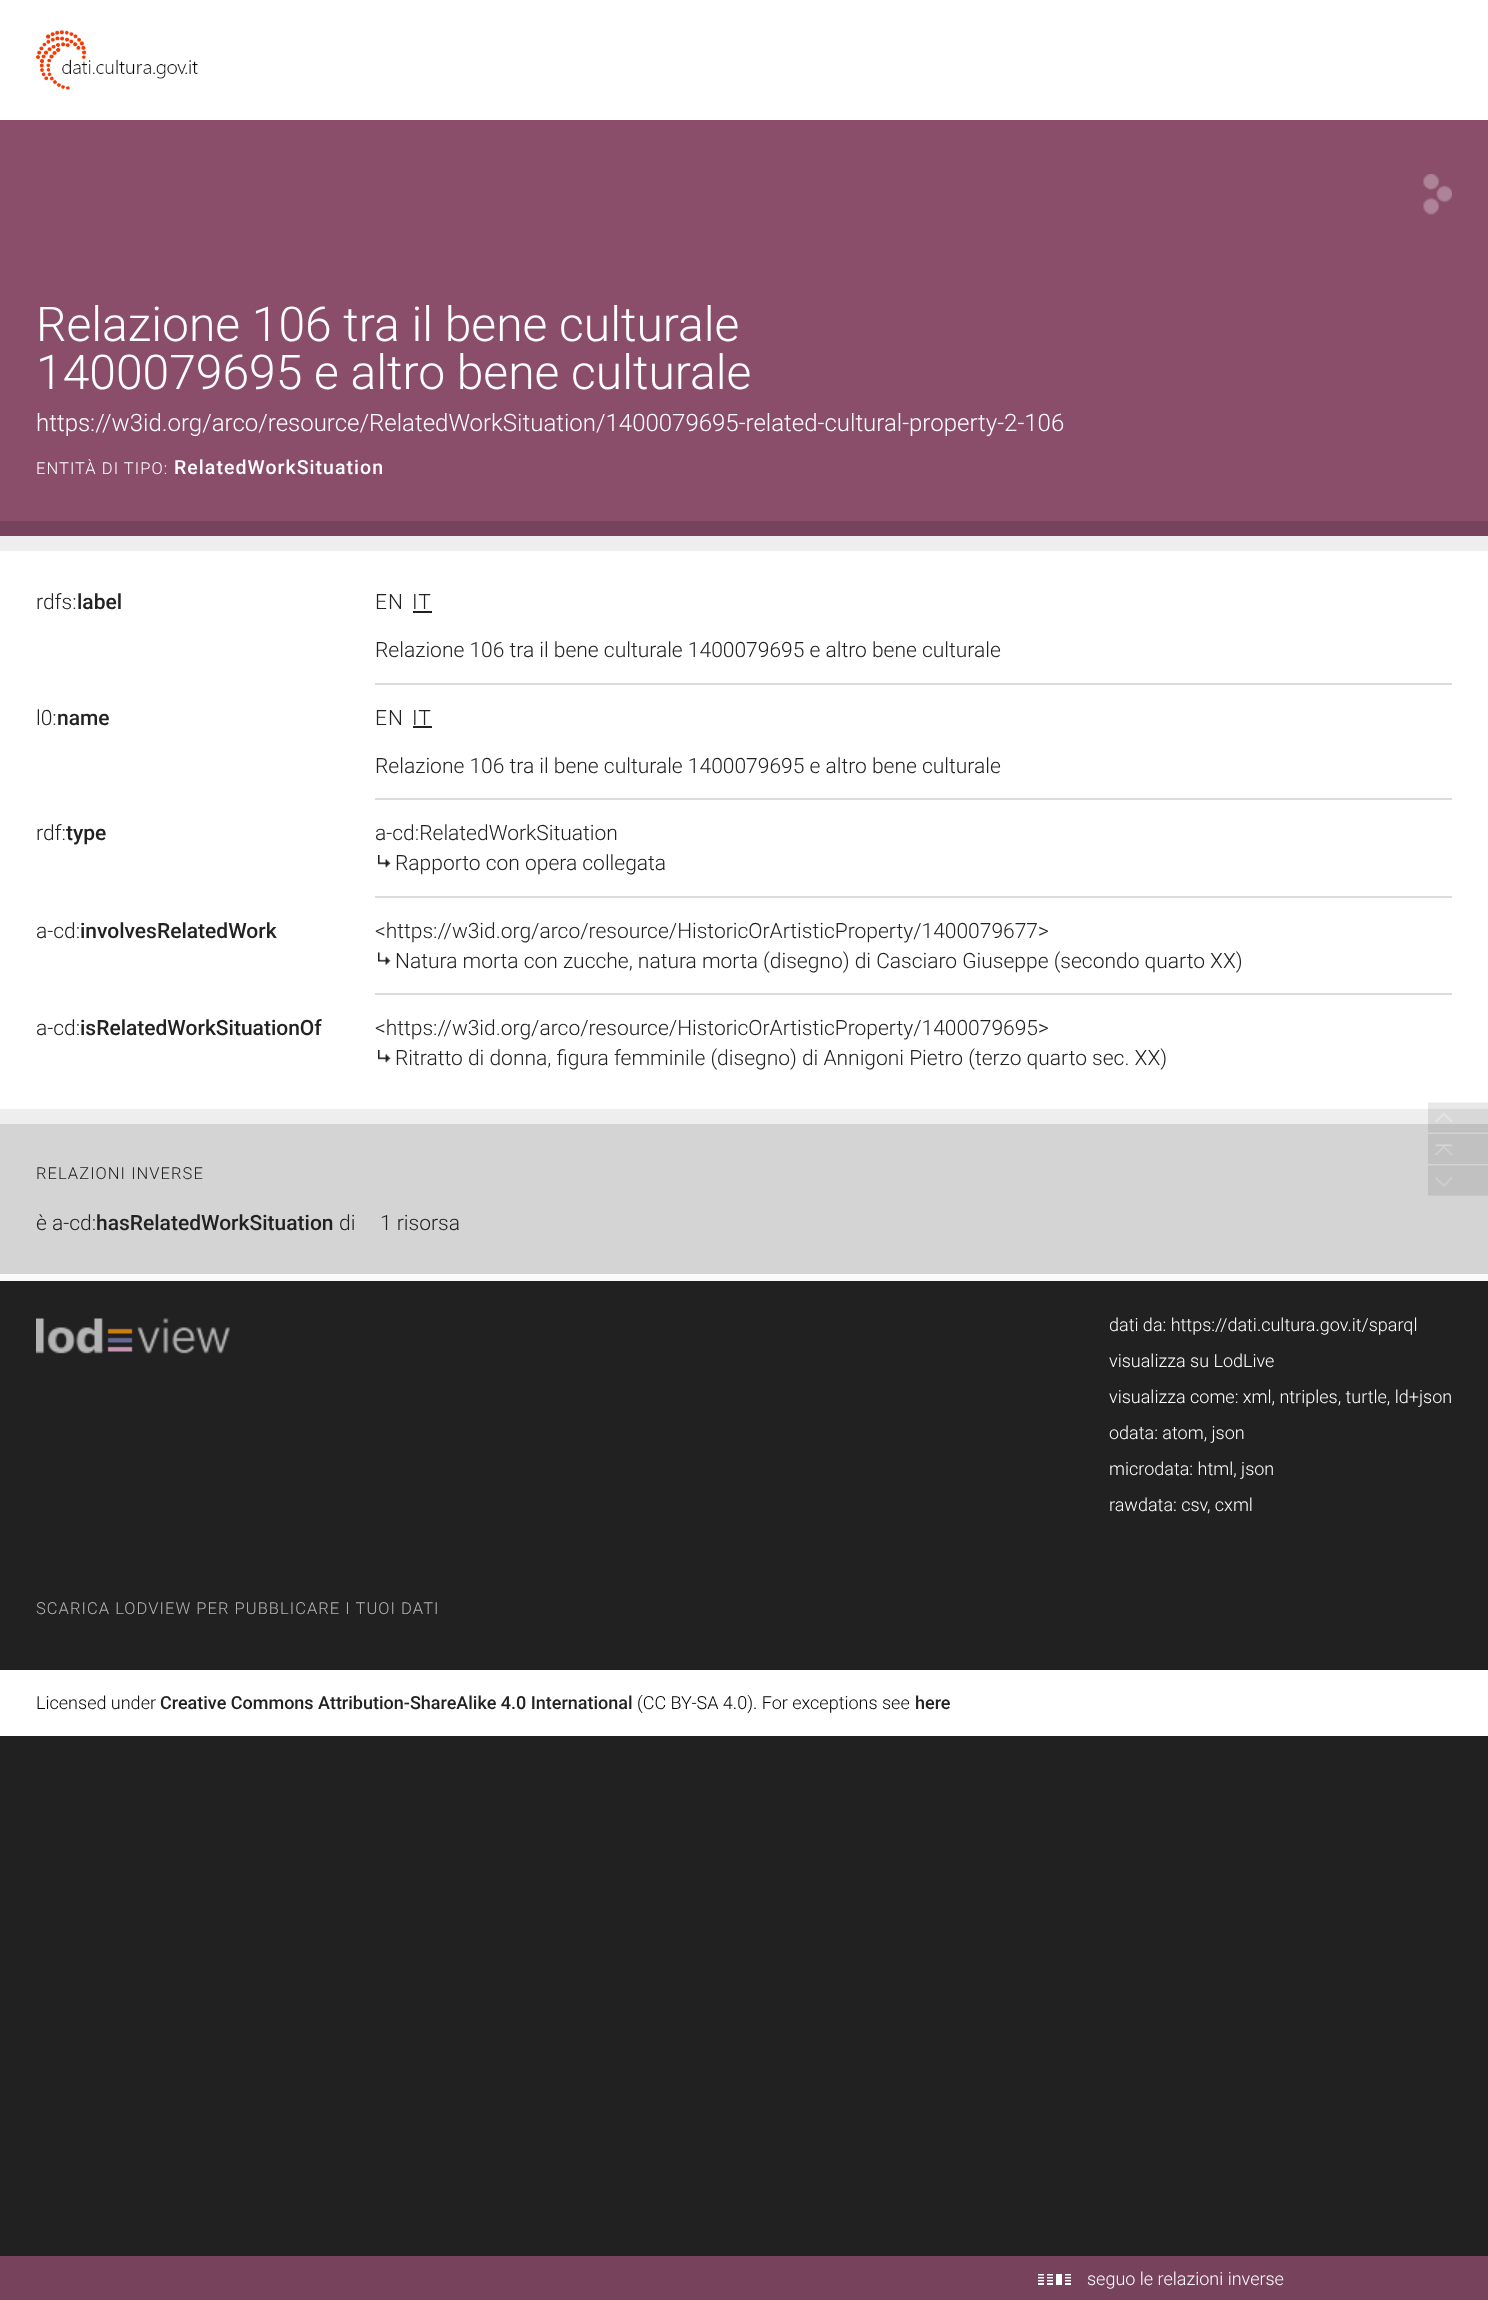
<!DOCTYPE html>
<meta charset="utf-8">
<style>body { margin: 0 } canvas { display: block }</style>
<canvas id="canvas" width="1488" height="2300"></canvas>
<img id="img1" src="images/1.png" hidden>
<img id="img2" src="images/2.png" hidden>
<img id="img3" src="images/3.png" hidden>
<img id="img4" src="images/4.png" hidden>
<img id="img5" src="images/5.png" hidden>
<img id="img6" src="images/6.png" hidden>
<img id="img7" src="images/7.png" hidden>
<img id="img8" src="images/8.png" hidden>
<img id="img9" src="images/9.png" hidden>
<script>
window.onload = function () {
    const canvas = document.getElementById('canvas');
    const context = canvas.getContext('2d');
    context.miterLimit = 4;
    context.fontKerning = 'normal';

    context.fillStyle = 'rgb(33, 33, 33)';
    context.fillRect(0, 0, 1488, 2300);
    context.fillStyle = 'rgb(255, 255, 255)';
    context.fillRect(0, 0, 1488, 120);
    context.drawImage(document.getElementById('img1'), 36, 30, 162, 60);
    context.fillStyle = 'rgb(138, 78, 106)';
    context.fillRect(0, 120, 1488, 401);
    context.drawImage(document.getElementById('img2'), 1423, 174, 29, 41);
    context.fillStyle = 'rgb(119, 67, 92)';
    context.fillRect(0, 521, 1488, 15);
    context.fillStyle = 'rgb(238, 238, 238)';
    context.fillRect(0, 536, 1488, 15);
    context.fillStyle = 'rgb(255, 255, 255)';
    context.fillRect(0, 551, 1488, 558);
    context.fillStyle = 'rgb(219, 219, 219)';
    context.fillRect(375, 683, 1077, 2);
    context.fillStyle = 'rgb(33, 33, 33)';
    context.fillRect(413, 611, 19, 2);
    context.fillStyle = 'rgb(219, 219, 219)';
    context.fillRect(375, 798, 1077, 2);
    context.fillStyle = 'rgb(33, 33, 33)';
    context.fillRect(413, 726, 19, 2);
    context.fillStyle = 'rgb(219, 219, 219)';
    context.fillRect(375, 896, 1077, 2);
    context.drawImage(document.getElementById('img3'), 378, 855, 13, 13);
    context.fillRect(375, 993, 1077, 2);
    context.drawImage(document.getElementById('img4'), 378, 952, 13, 13);
    context.drawImage(document.getElementById('img3'), 378, 1050, 13, 13);
    context.fillStyle = 'rgb(238, 238, 238)';
    context.fillRect(0, 1109, 1488, 15);
    context.fillStyle = 'rgb(212, 212, 212)';
    context.fillRect(0, 1124, 1488, 150);
    context.fillStyle = 'rgb(250, 250, 250)';
    context.fillRect(0, 1274, 1488, 7);
    context.drawImage(document.getElementById('img5'), 1428, 1102, 60, 31);
    context.drawImage(document.getElementById('img6'), 1428, 1134, 60, 30);
    context.drawImage(document.getElementById('img7'), 1428, 1165, 60, 31);
    context.drawImage(document.getElementById('img8'), 36, 1318, 194, 36);
    context.fillStyle = 'rgb(255, 255, 255)';
    context.fillRect(0, 1670, 1488, 66);
    context.fillStyle = 'rgb(119, 67, 92)';
    context.fillRect(0, 2256, 1488, 44);
    context.drawImage(document.getElementById('img9'), 1038, 2274, 33, 11);
    context.font = '300 48px Roboto';
    context.fillStyle = 'rgb(255, 255, 255)';
    context.fillText('Relazione 106 tra il bene culturale', 36, 341);
    context.fillText('1400079695 e altro bene culturale', 36, 389);
    context.font = '300 24px Roboto';
    context.fillText('https://w3id.org/arco/resource/RelatedWorkSituation/1400079695-related-cultural-property-2-106', 36, 431);
    context.letterSpacing = '1.05px';
    context.font = '300 16.5px Roboto';
    context.fillText('ENTITÀ DI TIPO:', 36, 474);
    context.font = '500 19.5px Roboto';
    context.fillText('RelatedWorkSituation', 174, 474);
    context.letterSpacing = '0px';
    context.font = '300 21px Roboto';
    context.fillStyle = 'rgb(34, 34, 34)';
    context.fillText('rdfs:', 36, 609);
    context.font = '500 21px Roboto';
    context.fillText('label', 77, 609);
    context.letterSpacing = '1.05px';
    context.font = '300 21px Roboto';
    context.fillText('EN', 375, 609);
    context.fillText('IT', 412, 609);
    context.letterSpacing = '0px';
    context.fillText('Relazione 106 tra il bene culturale 1400079695 e altro bene culturale', 375, 657);
    context.fillText('l0:', 36, 725);
    context.font = '500 21px Roboto';
    context.fillText('name', 57, 725);
    context.letterSpacing = '1.05px';
    context.font = '300 21px Roboto';
    context.fillText('EN', 375, 725);
    context.fillText('IT', 412, 725);
    context.letterSpacing = '0px';
    context.fillText('Relazione 106 tra il bene culturale 1400079695 e altro bene culturale', 375, 773);
    context.fillText('rdf:', 36, 840);
    context.font = '500 21px Roboto';
    context.fillText('type', 66, 840);
    context.font = '300 21px Roboto';
    context.fillText('a-cd:RelatedWorkSituation', 375, 840);
    context.fillText('Rapporto con opera collegata', 395, 870);
    context.fillText('a-cd:', 36, 938);
    context.font = '500 21px Roboto';
    context.fillText('involvesRelatedWork', 80, 938);
    context.font = '300 21px Roboto';
    context.fillText('<https://w3id.org/arco/resource/HistoricOrArtisticProperty/1400079677>', 375, 938);
    context.fillText('Natura morta con zucche, natura morta (disegno) di Casciaro Giuseppe (secondo quarto XX)', 395, 968);
    context.fillText('a-cd:', 36, 1035);
    context.font = '500 21px Roboto';
    context.fillText('isRelatedWorkSituationOf', 80, 1035);
    context.font = '300 21px Roboto';
    context.fillText('<https://w3id.org/arco/resource/HistoricOrArtisticProperty/1400079695>', 375, 1035);
    context.fillText('Ritratto di donna, figura femminile (disegno) di Annigoni Pietro (terzo quarto sec. XX)', 395, 1065);
    context.letterSpacing = '1.05px';
    context.font = '300 16.5px Roboto';
    context.fillText('RELAZIONI INVERSE', 36, 1179);
    context.letterSpacing = '0px';
    context.font = '300 21px Roboto';
    context.fillText('è a-cd:', 36, 1230);
    context.font = '500 21px Roboto';
    context.fillText('hasRelatedWorkSituation', 96, 1230);
    context.font = '300 21px Roboto';
    context.fillText('di', 339, 1230);
    context.fillText('1 risorsa', 380, 1230);
    context.font = '300 18px Roboto';
    context.fillStyle = 'rgb(255, 255, 255)';
    context.fillText('dati da: https://dati.cultura.gov.it/sparql', 1109, 1331);
    context.fillText('visualizza su LodLive', 1109, 1367);
    context.fillText('visualizza come: xml, ntriples, turtle, ld+json', 1109, 1403);
    context.fillText('odata: atom, json', 1109, 1439);
    context.fillText('microdata: html, json', 1109, 1475);
    context.fillText('rawdata: csv', 1109, 1511);
    context.fillText(', cxml', 1207, 1511);
    context.letterSpacing = '1.05px';
    context.font = '300 16.5px Roboto';
    context.fillStyle = 'rgb(180, 180, 180)';
    context.fillText('SCARICA LODVIEW PER PUBBLICARE I TUOI DATI', 36, 1614);
    context.letterSpacing = '0px';
    context.font = '300 18px Roboto';
    context.fillStyle = 'rgb(0, 0, 0)';
    context.fillText('Licensed under', 36, 1709);
    context.font = '500 18px Roboto';
    context.fillStyle = 'rgb(34, 34, 34)';
    context.fillText('Creative Commons Attribution-ShareAlike 4.0 International', 160, 1709);
    context.font = '300 18px Roboto';
    context.fillStyle = 'rgb(0, 0, 0)';
    context.fillText('(CC BY-SA 4.0). For exceptions see', 637, 1709);
    context.font = '500 18px Roboto';
    context.fillStyle = 'rgb(34, 34, 34)';
    context.fillText('here', 915, 1709);
    context.font = '300 18px Roboto';
    context.fillStyle = 'rgb(255, 255, 255)';
    context.fillText('seguo le relazioni inverse', 1087, 2285);
};
</script>
